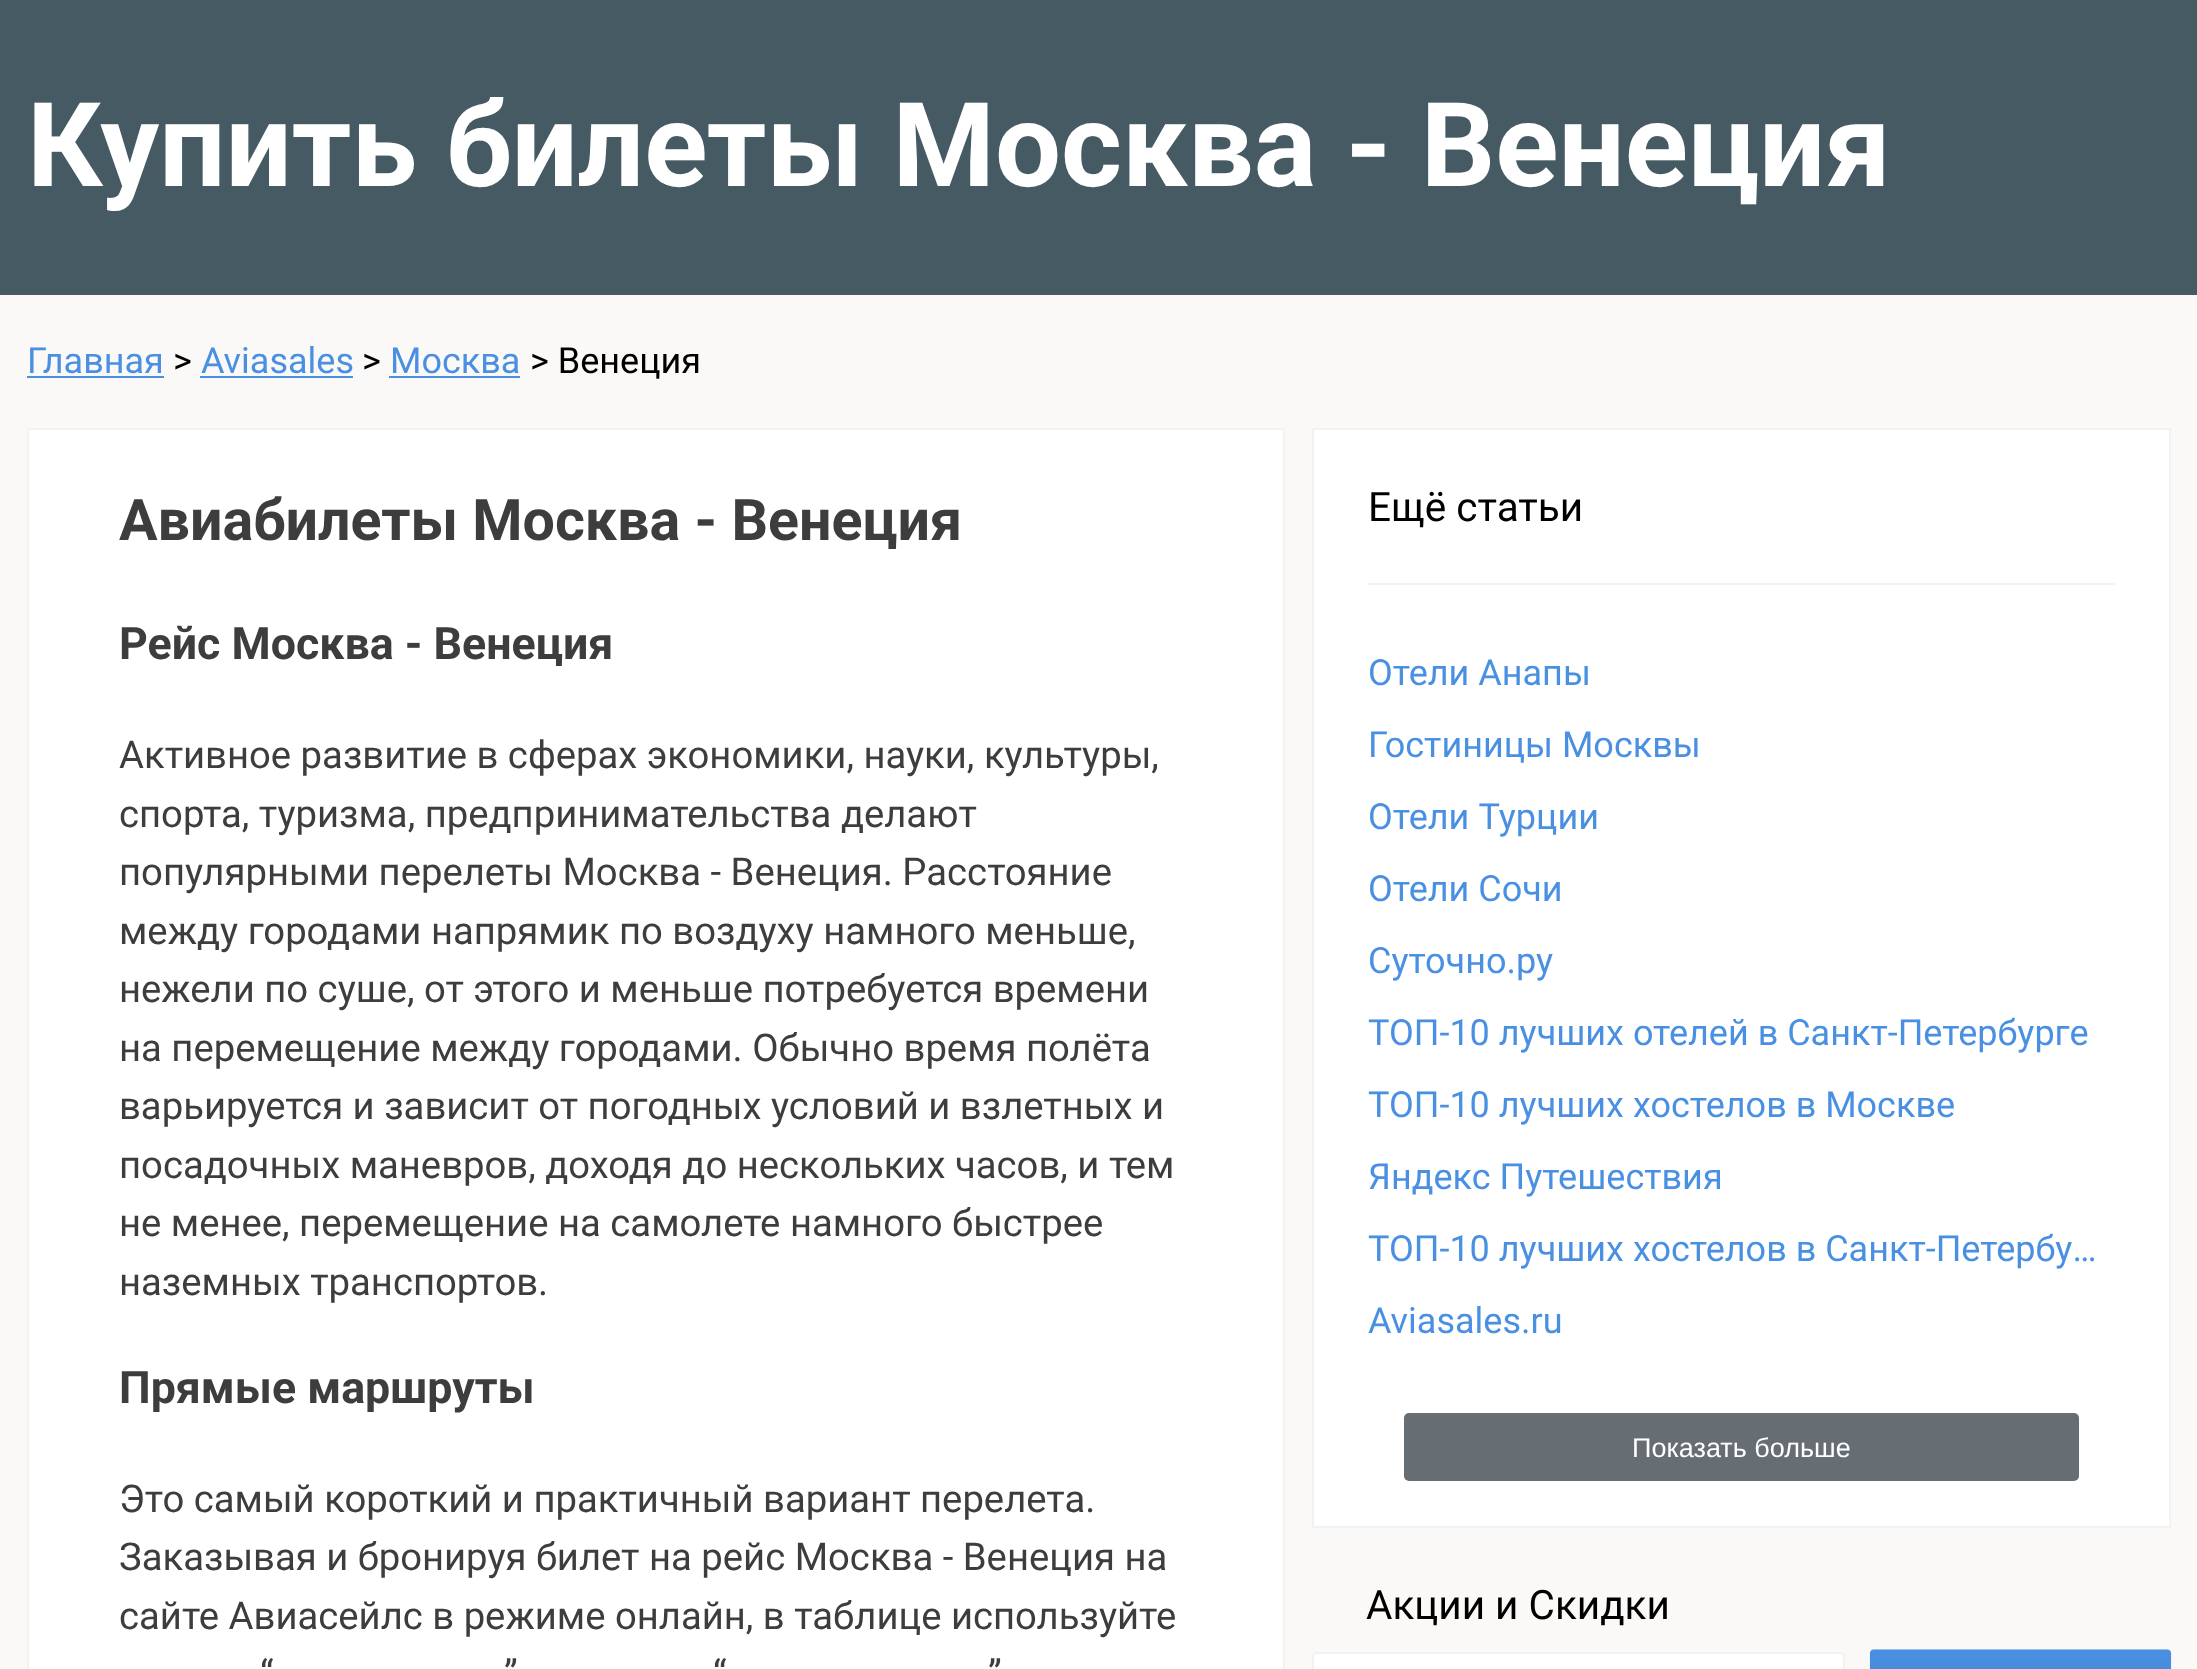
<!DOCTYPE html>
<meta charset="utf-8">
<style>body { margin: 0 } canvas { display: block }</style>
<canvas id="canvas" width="2197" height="1669"></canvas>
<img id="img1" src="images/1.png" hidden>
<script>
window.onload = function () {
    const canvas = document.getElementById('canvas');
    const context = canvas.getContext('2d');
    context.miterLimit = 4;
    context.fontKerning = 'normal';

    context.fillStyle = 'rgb(251, 249, 247)';
    context.fillRect(0, 0, 2197, 1669);
    context.fillStyle = 'rgb(69, 90, 99)';
    context.fillRect(0, 0, 2197, 295);
    context.fillStyle = 'rgb(74, 144, 226)';
    context.fillRect(27, 376, 137, 2);
    context.fillRect(200, 376, 153, 2);
    context.fillRect(389, 376, 131, 2);
    context.fillStyle = 'rgb(255, 255, 255)';
    context.beginPath();
    context.rect(28, 429, 1256, 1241);
    context.fill();
    context.strokeStyle = 'rgb(242, 242, 242)';
    context.lineWidth = 2;
    context.stroke();
    context.beginPath();
    context.rect(1313, 429, 857, 1098);
    context.fill();
    context.stroke();
    context.fillStyle = 'rgb(242, 242, 242)';
    context.fillRect(1368, 583, 747, 2);
    context.fillStyle = 'rgb(102, 110, 116)';
    context.beginPath();
    context.roundRect(1404, 1413, 675, 68, 5);
    context.fill();
    context.fillStyle = 'rgb(255, 255, 255)';
    context.beginPath();
    context.roundRect(1313, 1653, 531, 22, 4);
    context.fill();
    context.stroke();
    context.drawImage(document.getElementById('img1'), 1869, 1649, 303, 20);
    context.font = 'bold 117px Roboto';
    context.fillText('Купить билеты Москва - Венеция', 27, 186);
    context.font = '36px Roboto';
    context.fillStyle = 'rgb(74, 144, 226)';
    context.fillText('Главная', 27, 373);
    context.fillStyle = 'rgb(0, 0, 0)';
    context.fillText('>', 173, 373);
    context.fillStyle = 'rgb(74, 144, 226)';
    context.fillText('Aviasales', 201, 373);
    context.fillStyle = 'rgb(0, 0, 0)';
    context.fillText('>', 362, 373);
    context.fillStyle = 'rgb(74, 144, 226)';
    context.fillText('Москва', 390, 373);
    context.fillStyle = 'rgb(0, 0, 0)';
    context.fillText('> Венеция', 530, 373);
    context.font = 'bold 57.4px Roboto';
    context.fillStyle = 'rgb(61, 61, 61)';
    context.fillText('Авиабилеты Москва - Венеция', 119, 540);
    context.font = 'bold 44.75px Roboto';
    context.fillText('Рейс Москва - Венеция', 119, 659);
    context.font = '38.25px Roboto';
    context.fillText('Активное развитие в сферах экономики, науки, культуры,', 119, 768);
    context.fillText('спорта, туризма, предпринимательства делают', 119, 827);
    context.fillText('популярными перелеты Москва - Венеция. Расстояние', 119, 885);
    context.fillText('между городами напрямик по воздуху намного меньше,', 119, 944);
    context.fillText('нежели по суше, от этого и меньше потребуется времени', 119, 1002);
    context.fillText('на перемещение между городами. Обычно время полёта', 119, 1061);
    context.fillText('варьируется и зависит от погодных условий и взлетных и', 119, 1119);
    context.fillText('посадочных маневров, доходя до нескольких часов, и тем', 119, 1178);
    context.fillText('не менее, перемещение на самолете намного быстрее', 119, 1236);
    context.fillText('наземных транспортов.', 119, 1295);
    context.font = 'bold 44.75px Roboto';
    context.fillText('Прямые маршруты', 119, 1403);
    context.font = '38.25px Roboto';
    context.fillText('Это самый короткий и практичный вариант перелета.', 119, 1512);
    context.fillText('Заказывая и бронируя билет на рейс Москва - Венеция на', 119, 1570);
    context.fillText('сайте Авиасейлс в режиме онлайн, в таблице используйте', 119, 1629);
    context.fillText('“', 260, 1687);
    context.fillText('”', 504, 1687);
    context.fillText('“', 713, 1687);
    context.fillText('”', 988, 1687);
    context.font = '40.5px Roboto';
    context.fillStyle = 'rgb(0, 0, 0)';
    context.fillText('Ещё статьи', 1368, 521);
    context.font = '36px Roboto';
    context.fillStyle = 'rgb(74, 144, 226)';
    context.fillText('Отели Анапы', 1368, 685);
    context.fillText('Гостиницы Москвы', 1368, 757);
    context.wordSpacing = '1px';
    context.fillText('Отели Турции', 1368, 829);
    context.wordSpacing = '0px';
    context.fillText('Отели Сочи', 1368, 901);
    context.fillText('Суточно.ру', 1368, 973);
    context.fillText('ТОП-10 лучших отелей в Санкт-Петербурге', 1368, 1045);
    context.fillText('ТОП-10 лучших хостелов в Москве', 1368, 1117);
    context.fillText('Яндекс Путешествия', 1368, 1189);
    context.fillText('ТОП-10 лучших хостелов в Санкт-Петербу…', 1368, 1261);
    context.fillText('Aviasales.ru', 1368, 1333);
    context.font = '27px Liberation Sans';
    context.fillStyle = 'rgb(255, 255, 255)';
    context.fillText('Показать больше', 1632, 1457);
    context.font = '40.5px Roboto';
    context.fillStyle = 'rgb(0, 0, 0)';
    context.fillText('Акции и Скидки', 1366, 1619);
};
</script>
